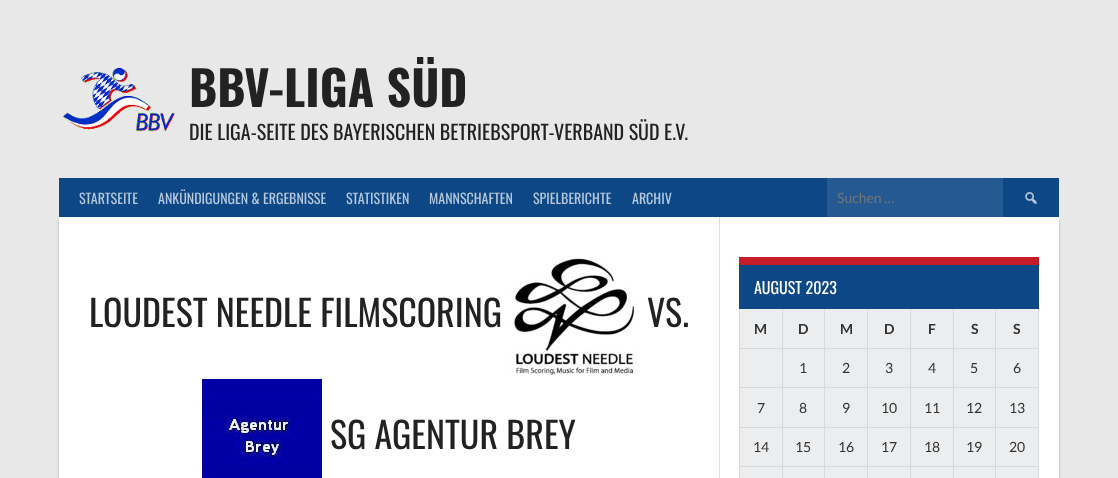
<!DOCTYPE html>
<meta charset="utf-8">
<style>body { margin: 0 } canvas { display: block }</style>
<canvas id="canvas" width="1118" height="478"></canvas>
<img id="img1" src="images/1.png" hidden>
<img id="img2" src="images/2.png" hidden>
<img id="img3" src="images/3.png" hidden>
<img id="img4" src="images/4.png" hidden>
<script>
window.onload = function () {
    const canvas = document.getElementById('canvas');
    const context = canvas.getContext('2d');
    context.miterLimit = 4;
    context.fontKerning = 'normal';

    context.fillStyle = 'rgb(232, 232, 232)';
    context.fillRect(0, 0, 1118, 478);
    context.drawImage(document.getElementById('img1'), 63, 68, 112, 64);
    context.fillStyle = 'rgba(0, 0, 0, 0.2)';
    context.filter = 'blur(1.5px)';
    context.beginPath();
    context.rect(59, 220, 1000, 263);
    context.fill();
    context.filter = 'none';
    context.fillStyle = 'rgb(13, 71, 133)';
    context.fillRect(59, 178, 1000, 39);
    context.fillStyle = 'rgb(37, 89, 145)';
    context.fillRect(827, 178, 176, 39);
    context.drawImage(document.getElementById('img2'), 1025, 192, 12, 12);
    context.fillStyle = 'rgb(255, 255, 255)';
    context.fillRect(59, 217, 1000, 261);
    context.fillStyle = 'rgb(224, 224, 224)';
    context.fillRect(719, 217, 1, 261);
    context.drawImage(document.getElementById('img3'), 511, 256, 128, 119);
    context.drawImage(document.getElementById('img4'), 202, 379, 120, 99);
    context.fillStyle = 'rgb(236, 237, 238)';
    context.fillRect(740, 309, 298, 169);
    context.fillStyle = 'rgb(216, 217, 218)';
    context.fillRect(1038, 309, 1, 169);
    context.fillRect(739, 309, 1, 169);
    context.fillRect(995, 348, 44, 1);
    context.fillRect(995, 387, 44, 1);
    context.fillRect(995, 427, 44, 1);
    context.fillRect(995, 466, 44, 1);
    context.fillRect(995, 466, 1, 12);
    context.fillRect(953, 466, 43, 1);
    context.fillRect(995, 427, 1, 40);
    context.fillRect(953, 427, 43, 1);
    context.fillRect(995, 387, 1, 41);
    context.fillRect(953, 387, 43, 1);
    context.fillRect(995, 348, 1, 40);
    context.fillRect(953, 348, 43, 1);
    context.fillRect(953, 466, 1, 12);
    context.fillRect(910, 466, 44, 1);
    context.fillRect(953, 427, 1, 40);
    context.fillRect(910, 427, 44, 1);
    context.fillRect(953, 387, 1, 41);
    context.fillRect(910, 387, 44, 1);
    context.fillRect(953, 348, 1, 40);
    context.fillRect(910, 348, 44, 1);
    context.fillRect(910, 466, 1, 12);
    context.fillRect(867, 466, 44, 1);
    context.fillRect(910, 427, 1, 40);
    context.fillRect(867, 427, 44, 1);
    context.fillRect(910, 387, 1, 41);
    context.fillRect(867, 387, 44, 1);
    context.fillRect(910, 348, 1, 40);
    context.fillRect(867, 348, 44, 1);
    context.fillRect(867, 466, 1, 12);
    context.fillRect(824, 466, 44, 1);
    context.fillRect(867, 427, 1, 40);
    context.fillRect(824, 427, 44, 1);
    context.fillRect(867, 387, 1, 41);
    context.fillRect(824, 387, 44, 1);
    context.fillRect(867, 348, 1, 40);
    context.fillRect(824, 348, 44, 1);
    context.fillRect(824, 466, 1, 12);
    context.fillRect(782, 466, 43, 1);
    context.fillRect(824, 427, 1, 40);
    context.fillRect(782, 427, 43, 1);
    context.fillRect(824, 387, 1, 41);
    context.fillRect(782, 387, 43, 1);
    context.fillRect(824, 348, 1, 40);
    context.fillRect(782, 348, 43, 1);
    context.fillRect(782, 466, 1, 12);
    context.fillRect(739, 466, 44, 1);
    context.fillRect(782, 427, 1, 40);
    context.fillRect(739, 427, 44, 1);
    context.fillRect(782, 387, 1, 41);
    context.fillRect(739, 387, 44, 1);
    context.fillRect(782, 348, 1, 40);
    context.fillRect(739, 348, 44, 1);
    context.fillRect(782, 308, 1, 41);
    context.fillRect(824, 308, 1, 41);
    context.fillRect(867, 308, 1, 41);
    context.fillRect(910, 308, 1, 41);
    context.fillRect(953, 308, 1, 41);
    context.fillRect(995, 308, 1, 41);
    context.fillStyle = 'rgb(13, 71, 133)';
    context.fillRect(739, 265, 300, 44);
    context.fillStyle = 'rgb(197, 29, 39)';
    context.fillRect(739, 257, 300, 8);
    context.font = 'bold 48px Oswald';
    context.fillStyle = 'rgb(34, 34, 34)';
    context.fillText('BBV-LIGA SÜD', 189, 107);
    context.font = '20px Oswald';
    context.fillText('DIE LIGA-SEITE DES BAYERISCHEN BETRIEBSPORT-VERBAND SÜD E.V.', 189, 140);
    context.font = '14px Oswald';
    context.fillStyle = 'rgb(182, 200, 218)';
    context.fillText('STARTSEITE', 79, 204);
    context.fillText('ANKÜNDIGUNGEN & ERGEBNISSE', 158, 204);
    context.fillText('STATISTIKEN', 346, 204);
    context.fillText('MANNSCHAFTEN', 429, 204);
    context.fillText('SPIELBERICHTE', 533, 204);
    context.fillText('ARCHIV', 632, 204);
    context.font = '14px Lato';
    context.fillStyle = 'rgb(117, 117, 117)';
    context.fillText('Suchen …', 837, 203);
    context.font = '36px Oswald';
    context.fillStyle = 'rgb(34, 34, 34)';
    context.fillText('LOUDEST NEEDLE FILMSCORING', 89, 327);
    context.fillText('VS.', 647, 327);
    context.fillText('SG AGENTUR BREY', 330, 449);
    context.font = '16px Oswald';
    context.fillStyle = 'rgb(255, 255, 255)';
    context.fillText('AUGUST 2023', 754, 294);
    context.font = 'bold 14px Lato';
    context.fillStyle = 'rgb(51, 51, 51)';
    context.fillText('M', 754, 334);
    context.fillText('D', 798, 334);
    context.fillText('M', 840, 334);
    context.fillText('D', 884, 334);
    context.fillText('F', 928, 334);
    context.fillText('S', 971, 334);
    context.fillText('S', 1013, 334);
    context.font = '14px Lato';
    context.fillText('1', 799, 373);
    context.fillText('2', 842, 373);
    context.fillText('3', 885, 373);
    context.fillText('4', 928, 373);
    context.fillText('5', 970, 373);
    context.fillText('6', 1013, 373);
    context.fillText('7', 757, 413);
    context.fillText('8', 799, 413);
    context.fillText('9', 842, 413);
    context.fillText('10', 881, 413);
    context.fillText('11', 924, 413);
    context.fillText('12', 966, 413);
    context.fillText('13', 1009, 413);
    context.fillText('14', 753, 452);
    context.fillText('15', 795, 452);
    context.fillText('16', 838, 452);
    context.fillText('17', 881, 452);
    context.fillText('18', 924, 452);
    context.fillText('19', 966, 452);
    context.fillText('20', 1009, 452);
};
</script>
